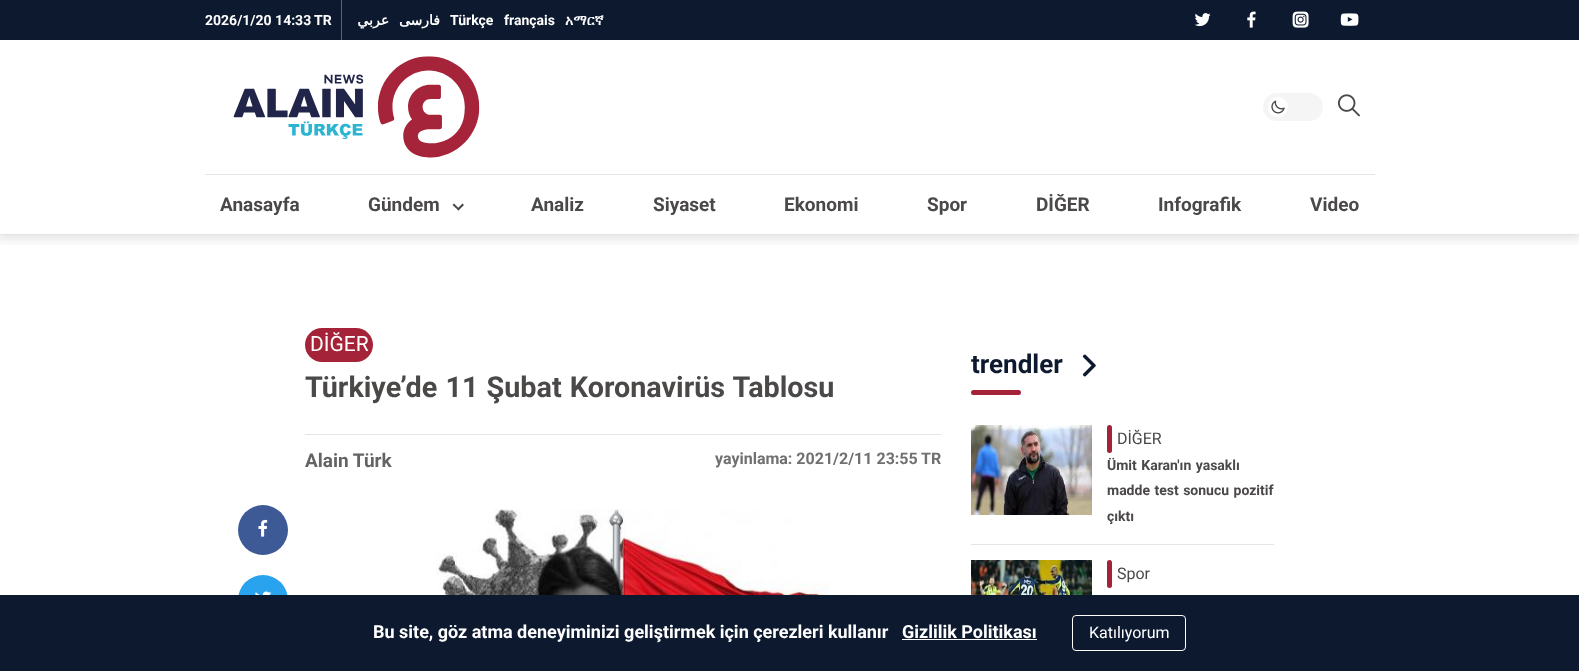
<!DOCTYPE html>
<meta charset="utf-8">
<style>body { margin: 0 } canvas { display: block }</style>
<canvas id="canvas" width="1579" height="671"></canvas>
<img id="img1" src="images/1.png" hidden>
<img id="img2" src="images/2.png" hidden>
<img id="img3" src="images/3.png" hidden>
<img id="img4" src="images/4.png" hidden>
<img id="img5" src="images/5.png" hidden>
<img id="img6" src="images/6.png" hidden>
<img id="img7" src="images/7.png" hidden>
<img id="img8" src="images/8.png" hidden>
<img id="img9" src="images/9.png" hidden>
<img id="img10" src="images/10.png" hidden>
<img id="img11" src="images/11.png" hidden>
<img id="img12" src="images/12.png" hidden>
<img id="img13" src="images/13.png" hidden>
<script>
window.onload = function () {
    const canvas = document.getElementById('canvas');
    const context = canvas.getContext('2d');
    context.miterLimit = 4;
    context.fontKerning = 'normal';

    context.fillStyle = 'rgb(255, 255, 255)';
    context.fillRect(0, 0, 1579, 671);
    context.fillStyle = 'rgb(250, 250, 250)';
    context.fillRect(0, 234, 1579, 1);
    context.save();
    context.beginPath();
    context.rect(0, 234, 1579, 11);
    context.clip();
    context.fillStyle = 'rgba(23, 23, 23, 0.12)';
    context.filter = 'blur(6px)';
    context.beginPath();
    context.rect(-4, -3, 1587, 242);
    context.fill();
    context.filter = 'none';
    context.restore();
    context.fillStyle = 'rgb(12, 25, 47)';
    context.fillRect(0, 0, 1579, 40);
    context.fillStyle = 'rgb(90, 99, 114)';
    context.fillRect(341, 0, 1, 40);
    context.drawImage(document.getElementById('img1'), 1194, 13, 17, 14);
    context.drawImage(document.getElementById('img2'), 1247, 11, 9, 17);
    context.drawImage(document.getElementById('img3'), 1292, 11, 17, 17);
    context.drawImage(document.getElementById('img4'), 1340, 13, 19, 13);
    context.drawImage(document.getElementById('img5'), 233, 56, 247, 102);
    context.fillStyle = 'rgb(245, 245, 245)';
    context.beginPath();
    context.roundRect(1263, 93, 60, 28, 14);
    context.fill();
    context.fillStyle = 'rgb(255, 255, 255)';
    context.beginPath();
    context.arc(1278, 107, 10, 0, 2 * Math.PI);
    context.fill();
    context.drawImage(document.getElementById('img6'), 1271, 100, 14, 14);
    context.drawImage(document.getElementById('img7'), 1338, 94, 22, 23);
    context.fillStyle = 'rgb(230, 229, 229)';
    context.fillRect(205, 174, 1170, 1);
    context.fillStyle = 'rgb(75, 72, 72)';
    context.beginPath();
    context.moveTo(462.5, 203.5);
    context.lineTo(464, 205);
    context.lineTo(458.5, 210.5);
    context.lineTo(457, 209);
    context.closePath();
    context.fill();
    context.beginPath();
    context.moveTo(454, 203.5);
    context.lineTo(459.5, 209);
    context.lineTo(458.5, 210.5);
    context.lineTo(452.5, 205);
    context.closePath();
    context.fill();
    context.fillStyle = 'rgb(165, 35, 57)';
    context.beginPath();
    context.roundRect(305, 328, 68, 34, 17);
    context.fill();
    context.fillStyle = 'rgb(230, 229, 229)';
    context.fillRect(305, 434, 636, 1);
    context.fillStyle = 'rgb(61, 90, 150)';
    context.beginPath();
    context.arc(263, 530, 25, 0, 2 * Math.PI);
    context.fill();
    context.drawImage(document.getElementById('img8'), 258, 519, 10, 18);
    context.fillStyle = 'rgb(42, 163, 239)';
    context.beginPath();
    context.arc(263, 600, 25, 0, 2 * Math.PI);
    context.fill();
    context.drawImage(document.getElementById('img9'), 255, 591, 17, 4);
    context.drawImage(document.getElementById('img10'), 414, 509, 458, 86);
    context.drawImage(document.getElementById('img11'), 1082, 354, 14, 23);
    context.fillStyle = 'rgb(165, 35, 57)';
    context.beginPath();
    context.roundRect(971, 390, 50, 5, 2.5);
    context.fill();
    context.fillStyle = 'rgb(230, 229, 229)';
    context.fillRect(971, 544, 303, 1);
    context.drawImage(document.getElementById('img12'), 971, 425, 121, 90);
    context.fillStyle = 'rgb(165, 35, 57)';
    context.beginPath();
    context.roundRect(1107, 425, 5, 28, 2.5);
    context.fill();
    context.drawImage(document.getElementById('img13'), 971, 560, 121, 35);
    context.beginPath();
    context.roundRect(1107, 560, 5, 28, 2.5);
    context.fill();
    context.fillStyle = 'rgb(12, 25, 47)';
    context.fillRect(0, 595, 1579, 76);
    context.fillStyle = 'rgb(255, 255, 255)';
    context.fillRect(902, 639, 135, 1);
    context.beginPath();
    context.roundRect(1072.5, 615.5, 113, 35, 3.5);
    context.strokeStyle = 'rgb(255, 255, 255)';
    context.stroke();
    context.font = 'bold 14px Roboto';
    context.fillText('2026/1/20 14:33', 205, 25);
    context.fillText('TR', 314, 25);
    context.direction = 'rtl';
    context.font = 'bold 14px DejaVu Sans';
    context.fillText('عربي', 389, 25);
    context.fillText('فارسى', 440, 25);
    context.direction = 'ltr';
    context.font = 'bold 14px Roboto';
    context.fillText('Türkçe', 450, 25);
    context.fillText('français', 504, 25);
    context.font = 'bold 14px FreeSerif';
    context.fillText('አማርኛ', 565, 25);
    context.font = 'bold 19px Roboto';
    context.fillStyle = 'rgb(75, 72, 72)';
    context.fillText('Anasayfa', 220, 211);
    context.fillText('Gündem', 368, 211);
    context.fillText('Analiz', 531, 211);
    context.fillText('Siyaset', 653, 211);
    context.fillText('Ekonomi', 784, 211);
    context.fillText('Spor', 927, 211);
    context.fillText('DİĞER', 1036, 211);
    context.fillText('Infografik', 1158, 211);
    context.fillText('Video', 1310, 211);
    context.font = '21px Roboto';
    context.fillStyle = 'rgb(255, 255, 255)';
    context.fillText('DİĞER', 310, 351);
    context.wordSpacing = '1px';
    context.font = 'bold 28.75px Roboto';
    context.fillStyle = 'rgb(75, 72, 72)';
    context.fillText('Türkiye’de 11 Şubat Koronavirüs Tablosu', 305, 397);
    context.wordSpacing = '0px';
    context.font = 'bold 19px Roboto';
    context.fillStyle = 'rgb(100, 100, 100)';
    context.fillText('Alain Türk', 305, 467);
    context.font = 'bold 16px Roboto';
    context.fillStyle = 'rgb(112, 112, 112)';
    context.fillText('yayinlama: 2021/2/11 23:55', 715, 464);
    context.fillText('TR', 921, 464);
    context.font = 'bold 26px Roboto';
    context.fillStyle = 'rgb(12, 25, 47)';
    context.fillText('trendler', 971, 373);
    context.font = '16px Roboto';
    context.fillStyle = 'rgb(75, 72, 72)';
    context.fillText('DİĞER', 1117, 444);
    context.wordSpacing = '1px';
    context.font = 'bold 14px Roboto';
    context.fillText('Ümit Karan\'ın yasaklı', 1107, 470);
    context.fillText('madde test sonucu pozitif', 1107, 495);
    context.wordSpacing = '0px';
    context.fillText('çıktı', 1107, 521);
    context.font = '16px Roboto';
    context.fillText('Spor', 1117, 579);
    context.font = 'bold 18px Roboto';
    context.fillStyle = 'rgb(255, 255, 255)';
    context.fillText('Bu site, göz atma deneyiminizi geliştirmek için çerezleri kullanır', 373, 638);
    context.fillText('Gizlilik Politikası', 902, 638);
    context.font = '16px Roboto';
    context.fillText('Katılıyorum', 1089, 638);
};
</script>
